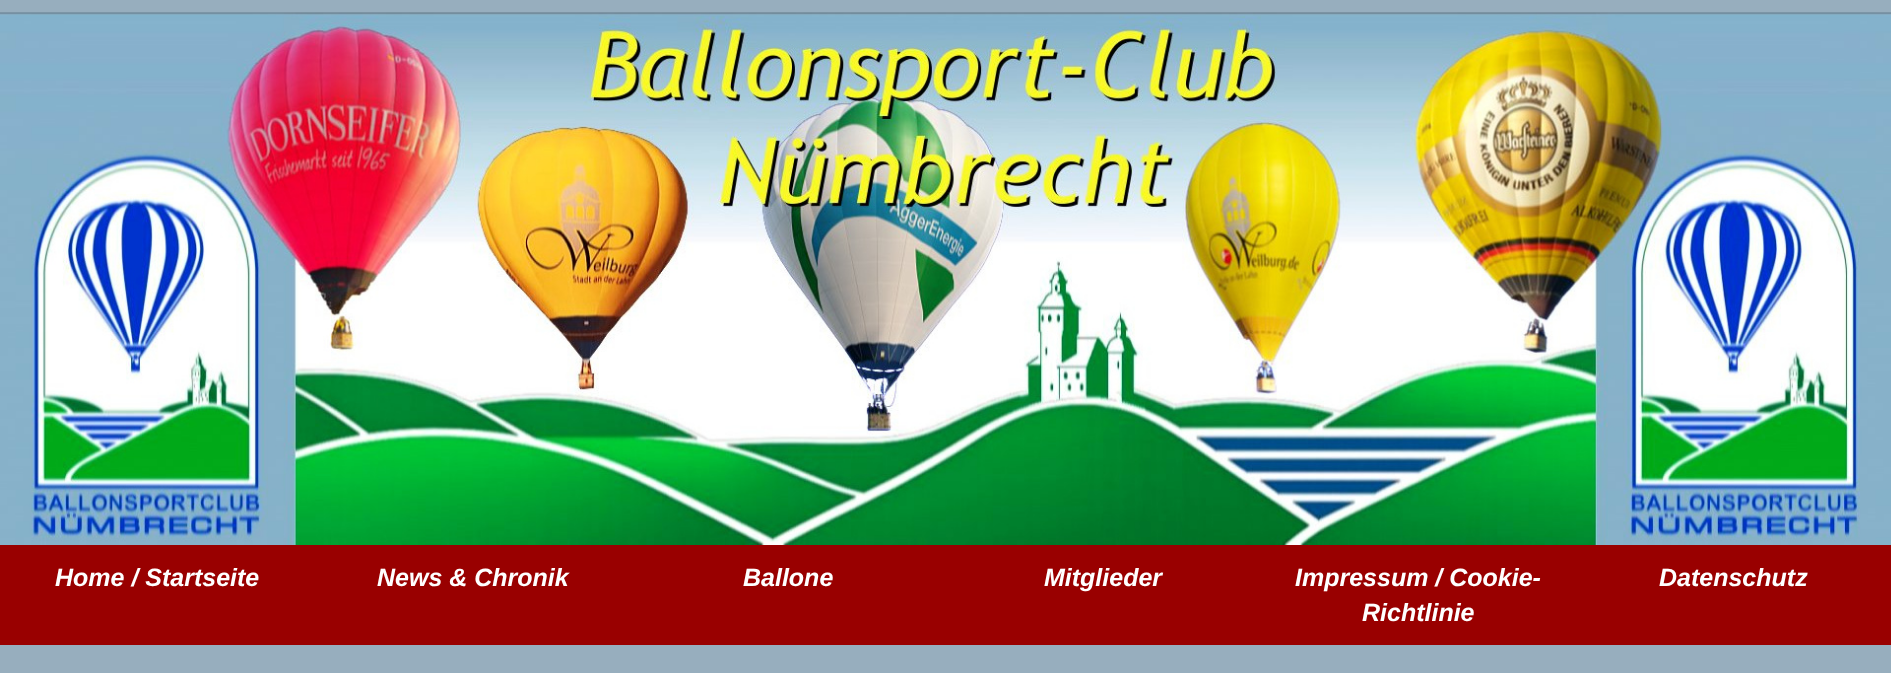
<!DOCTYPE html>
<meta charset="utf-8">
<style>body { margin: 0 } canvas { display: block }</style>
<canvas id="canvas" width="1891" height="673"></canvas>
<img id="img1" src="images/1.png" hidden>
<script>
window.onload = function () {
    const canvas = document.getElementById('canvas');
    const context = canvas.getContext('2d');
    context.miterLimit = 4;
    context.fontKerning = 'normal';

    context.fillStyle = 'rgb(151, 174, 190)';
    context.fillRect(0, 0, 1891, 673);
    context.drawImage(document.getElementById('img1'), 0, 12, 1891, 533);
    context.fillStyle = 'rgb(153, 0, 0)';
    context.fillRect(0, 545, 1891, 100);
    context.font = 'italic bold 25px Liberation Sans';
    context.fillStyle = 'rgb(255, 255, 255)';
    context.fillText('Home / Startseite', 55, 586);
    context.fillText('News & Chronik', 377, 586);
    context.fillText('Ballone', 743, 586);
    context.fillText('Mitglieder', 1044, 586);
    context.fillText('Impressum / Cookie-', 1295, 586);
    context.fillText('Richtlinie', 1362, 621);
    context.fillText('Datenschutz', 1659, 586);
};
</script>
